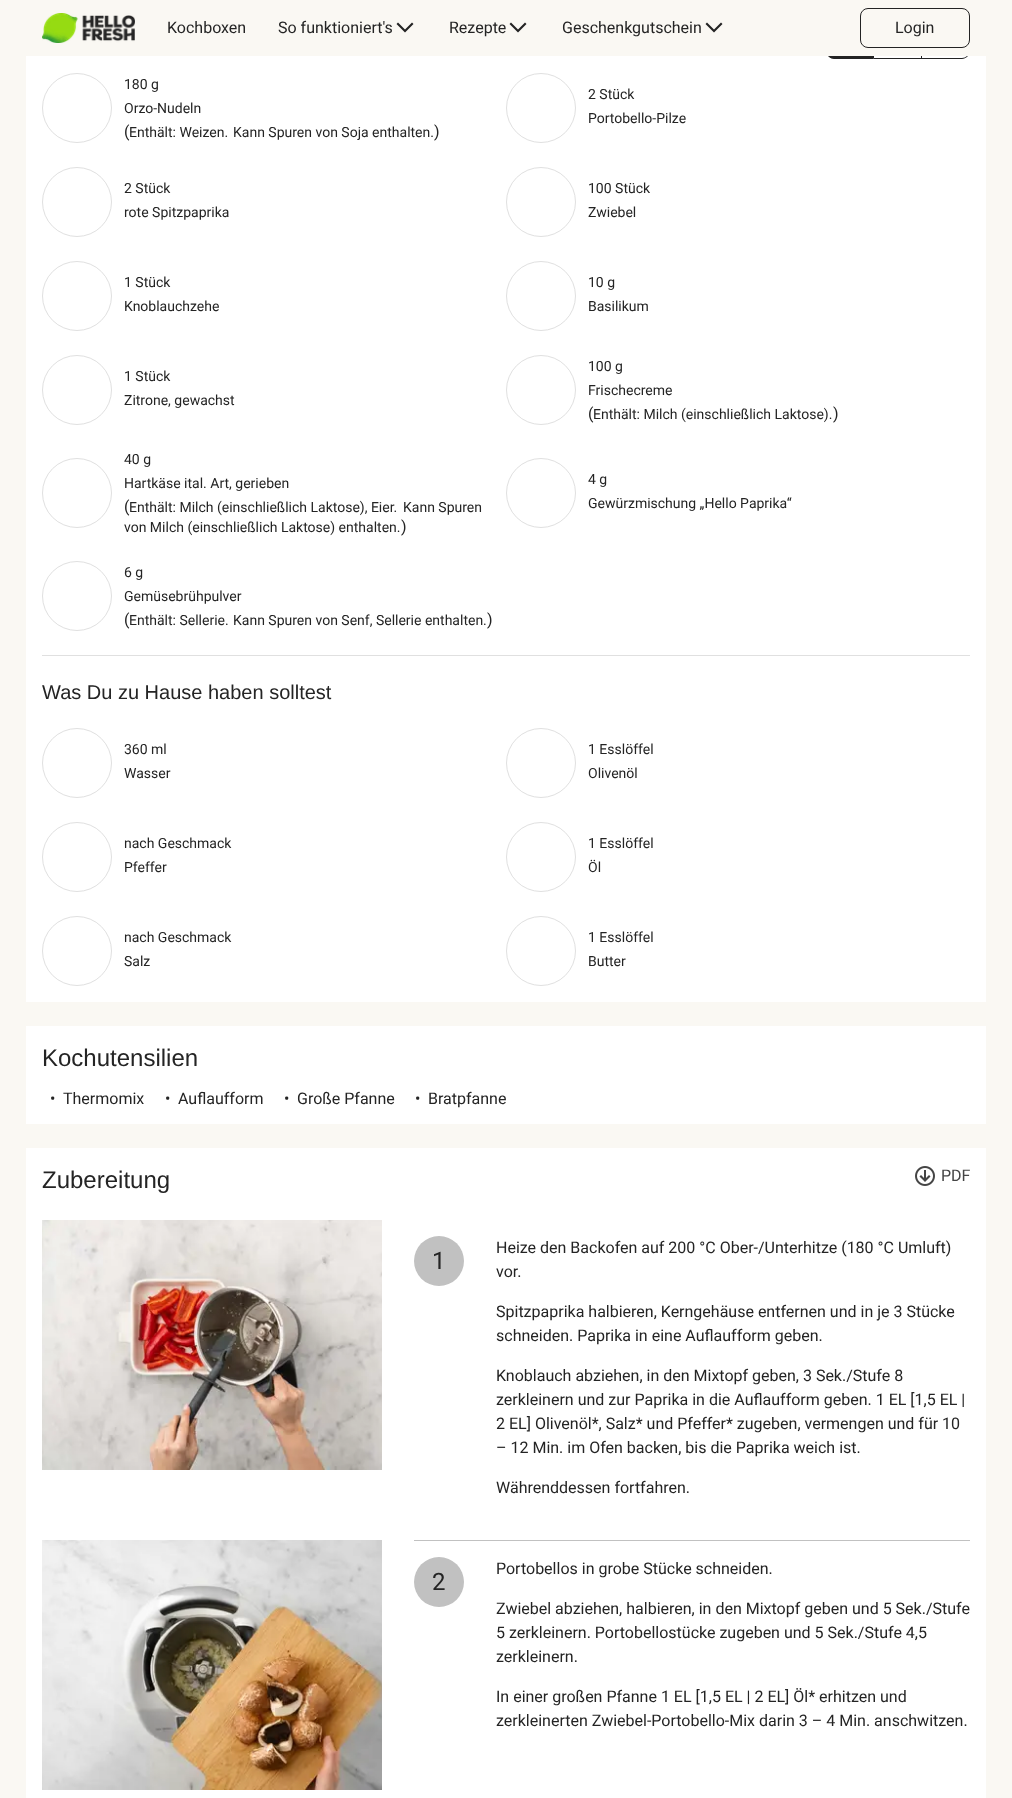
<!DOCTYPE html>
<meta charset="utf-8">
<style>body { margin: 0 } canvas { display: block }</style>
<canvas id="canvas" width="1012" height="1798"></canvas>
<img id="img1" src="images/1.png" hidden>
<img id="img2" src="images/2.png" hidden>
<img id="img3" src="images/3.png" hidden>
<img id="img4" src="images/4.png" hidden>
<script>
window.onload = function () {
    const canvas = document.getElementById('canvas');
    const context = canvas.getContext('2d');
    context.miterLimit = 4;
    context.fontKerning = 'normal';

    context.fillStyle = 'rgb(250, 248, 243)';
    context.fillRect(0, 0, 1012, 1798);
    context.fillStyle = 'rgb(255, 255, 255)';
    context.fillRect(26, 56, 960, 946);
    context.fillStyle = 'rgb(35, 35, 35)';
    context.beginPath();
    context.roundRect(826.5, 17.5, 47, 41, [7.5, 0, 0, 7.5]);
    context.fill();
    context.strokeStyle = 'rgb(35, 35, 35)';
    context.stroke();
    context.beginPath();
    context.moveTo(922, 17);
    context.lineTo(962, 17);
    context.bezierCurveTo(966, 17, 970, 21, 970, 25);
    context.lineTo(970, 51);
    context.bezierCurveTo(970, 55, 966, 59, 962, 59);
    context.lineTo(922, 59);
    context.closePath();
    context.moveTo(922, 18);
    context.lineTo(962, 18);
    context.bezierCurveTo(966, 18, 969, 21, 969, 25);
    context.lineTo(969, 51);
    context.bezierCurveTo(969, 55, 966, 58, 962, 58);
    context.lineTo(922, 58);
    context.closePath();
    context.fill('evenodd');
    context.fillStyle = 'rgb(250, 248, 243)';
    context.fillRect(826, 17, 144, 39);
    context.drawImage(document.getElementById('img1'), 42, 13, 93, 30);
    context.fillStyle = 'rgb(36, 36, 36)';
    context.beginPath();
    context.moveTo(405, 32.5);
    context.lineTo(413.5, 24);
    context.lineTo(412, 22.5);
    context.lineTo(405, 29.5);
    context.lineTo(398, 22.5);
    context.lineTo(396.5, 24);
    context.closePath();
    context.fill('evenodd');
    context.beginPath();
    context.moveTo(518, 32.5);
    context.lineTo(526.5, 24);
    context.lineTo(525, 22.5);
    context.lineTo(518, 29.5);
    context.lineTo(511, 22.5);
    context.lineTo(509.5, 24);
    context.closePath();
    context.fill('evenodd');
    context.beginPath();
    context.moveTo(714, 32.5);
    context.lineTo(722.5, 24);
    context.lineTo(721, 22.5);
    context.lineTo(714, 29.5);
    context.lineTo(707, 22.5);
    context.lineTo(705.5, 24);
    context.closePath();
    context.fill('evenodd');
    context.beginPath();
    context.roundRect(860.5, 8.5, 109, 39, 7.5);
    context.stroke();
    context.fillStyle = 'rgb(35, 35, 35)';
    context.fillRect(921, 56, 1, 3);
    context.fillRect(874, 58, 48, 1);
    context.beginPath();
    context.arc(77, 108, 34.5, 0, 2 * Math.PI);
    context.strokeStyle = 'rgb(224, 224, 224)';
    context.stroke();
    context.beginPath();
    context.arc(541, 108, 34.5, 0, 2 * Math.PI);
    context.stroke();
    context.beginPath();
    context.arc(77, 202, 34.5, 0, 2 * Math.PI);
    context.stroke();
    context.beginPath();
    context.arc(541, 202, 34.5, 0, 2 * Math.PI);
    context.stroke();
    context.beginPath();
    context.arc(77, 296, 34.5, 0, 2 * Math.PI);
    context.stroke();
    context.beginPath();
    context.arc(541, 296, 34.5, 0, 2 * Math.PI);
    context.stroke();
    context.beginPath();
    context.arc(77, 390, 34.5, 0, 2 * Math.PI);
    context.stroke();
    context.beginPath();
    context.arc(541, 390, 34.5, 0, 2 * Math.PI);
    context.stroke();
    context.beginPath();
    context.arc(77, 493, 34.5, 0, 2 * Math.PI);
    context.stroke();
    context.beginPath();
    context.arc(541, 493, 34.5, 0, 2 * Math.PI);
    context.stroke();
    context.beginPath();
    context.arc(77, 596, 34.5, 0, 2 * Math.PI);
    context.stroke();
    context.fillStyle = 'rgb(224, 224, 224)';
    context.fillRect(42, 655, 928, 1);
    context.beginPath();
    context.arc(77, 763, 34.5, 0, 2 * Math.PI);
    context.stroke();
    context.beginPath();
    context.arc(541, 763, 34.5, 0, 2 * Math.PI);
    context.stroke();
    context.beginPath();
    context.arc(77, 857, 34.5, 0, 2 * Math.PI);
    context.stroke();
    context.beginPath();
    context.arc(541, 857, 34.5, 0, 2 * Math.PI);
    context.stroke();
    context.beginPath();
    context.arc(77, 951, 34.5, 0, 2 * Math.PI);
    context.stroke();
    context.beginPath();
    context.arc(541, 951, 34.5, 0, 2 * Math.PI);
    context.stroke();
    context.fillStyle = 'rgb(255, 255, 255)';
    context.fillRect(26, 1026, 960, 98);
    context.fillRect(26, 1148, 960, 650);
    context.drawImage(document.getElementById('img2'), 915, 1166, 20, 20);
    context.drawImage(document.getElementById('img3'), 42, 1220, 340, 250);
    context.fillStyle = 'rgb(193, 193, 193)';
    context.beginPath();
    context.arc(439, 1261, 25, 0, 2 * Math.PI);
    context.fill();
    context.drawImage(document.getElementById('img4'), 42, 1540, 340, 250);
    context.fillRect(414, 1540, 556, 1);
    context.beginPath();
    context.arc(439, 1582, 25, 0, 2 * Math.PI);
    context.fill();
    context.font = '16px Roboto';
    context.fillStyle = 'rgb(36, 36, 36)';
    context.fillText('Kochboxen', 167, 33);
    context.fillText('So funktioniert\'s', 278, 33);
    context.fillText('Rezepte', 449, 33);
    context.fillText('Geschenkgutschein', 562, 33);
    context.fillText('Login', 895, 33);
    context.font = '14px Roboto';
    context.fillText('180 g', 124, 89);
    context.fillText('Orzo-Nudeln', 124, 113);
    context.font = '16px Roboto';
    context.fillText('(', 124, 137);
    context.font = '14px Roboto';
    context.fillText('Enthält: Weizen.', 129, 137);
    context.fillText('Kann Spuren von Soja enthalten.', 233, 137);
    context.font = '16px Roboto';
    context.fillText(')', 434, 137);
    context.font = '14px Roboto';
    context.fillText('2 Stück', 588, 99);
    context.fillText('Portobello-Pilze', 588, 123);
    context.fillText('2 Stück', 124, 193);
    context.fillText('rote Spitzpaprika', 124, 217);
    context.fillText('100 Stück', 588, 193);
    context.fillText('Zwiebel', 588, 217);
    context.fillText('1 Stück', 124, 287);
    context.fillText('Knoblauchzehe', 124, 311);
    context.fillText('10 g', 588, 287);
    context.fillText('Basilikum', 588, 311);
    context.fillText('1 Stück', 124, 381);
    context.fillText('Zitrone, gewachst', 124, 405);
    context.fillText('100 g', 588, 371);
    context.fillText('Frischecreme', 588, 395);
    context.font = '16px Roboto';
    context.fillText('(', 588, 419);
    context.font = '14px Roboto';
    context.fillText('Enthält: Milch (einschließlich Laktose).', 593, 419);
    context.font = '16px Roboto';
    context.fillText(')', 833, 419);
    context.font = '14px Roboto';
    context.fillText('40 g', 124, 464);
    context.fillText('Hartkäse ital. Art, gerieben', 124, 488);
    context.font = '16px Roboto';
    context.fillText('(', 124, 512);
    context.font = '14px Roboto';
    context.fillText('Enthält: Milch (einschließlich Laktose), Eier.', 129, 512);
    context.fillText('Kann Spuren', 403, 512);
    context.fillText('von Milch (einschließlich Laktose) enthalten.', 124, 532);
    context.font = '16px Roboto';
    context.fillText(')', 401, 532);
    context.font = '14px Roboto';
    context.fillText('4 g', 588, 484);
    context.fillText('Gewürzmischung „Hello Paprika“', 588, 508);
    context.fillText('6 g', 124, 577);
    context.fillText('Gemüsebrühpulver', 124, 601);
    context.font = '16px Roboto';
    context.fillText('(', 124, 625);
    context.font = '14px Roboto';
    context.fillText('Enthält: Sellerie.', 129, 625);
    context.fillText('Kann Spuren von Senf, Sellerie enthalten.', 233, 625);
    context.font = '16px Roboto';
    context.fillText(')', 487, 625);
    context.font = '20px Liberation Sans';
    context.fillText('Was Du zu Hause haben solltest', 42, 699);
    context.font = '14px Roboto';
    context.fillText('360 ml', 124, 754);
    context.fillText('Wasser', 124, 778);
    context.fillText('1 Esslöffel', 588, 754);
    context.fillText('Olivenöl', 588, 778);
    context.fillText('nach Geschmack', 124, 848);
    context.fillText('Pfeffer', 124, 872);
    context.fillText('1 Esslöffel', 588, 848);
    context.fillText('Öl', 588, 872);
    context.fillText('nach Geschmack', 124, 942);
    context.fillText('Salz', 124, 966);
    context.fillText('1 Esslöffel', 588, 942);
    context.fillText('Butter', 588, 966);
    context.font = '24px Liberation Sans';
    context.fillText('Kochutensilien', 42, 1066);
    context.font = '16px Roboto';
    context.fillText('•', 50, 1104);
    context.fillText('Thermomix', 63, 1104);
    context.fillText('•', 165, 1104);
    context.fillText('Auflaufform', 178, 1104);
    context.fillText('•', 284, 1104);
    context.fillText('Große Pfanne', 297, 1104);
    context.fillText('•', 415, 1104);
    context.fillText('Bratpfanne', 428, 1104);
    context.font = '24px Liberation Sans';
    context.fillText('Zubereitung', 42, 1188);
    context.font = '16px Roboto';
    context.fillStyle = 'rgb(69, 69, 69)';
    context.fillText('PDF', 941, 1181);
    context.font = '24px Roboto';
    context.fillStyle = 'rgb(36, 36, 36)';
    context.fillText('1', 432, 1269);
    context.font = '16px Roboto';
    context.fillText('Heize den Backofen auf 200 °C Ober-/Unterhitze (180 °C Umluft)', 496, 1253);
    context.fillText('vor.', 496, 1277);
    context.fillText('Spitzpaprika halbieren, Kerngehäuse entfernen und in je 3 Stücke', 496, 1317);
    context.fillText('schneiden. Paprika in eine Auflaufform geben.', 496, 1341);
    context.fillText('Knoblauch abziehen, in den Mixtopf geben, 3 Sek./Stufe 8', 496, 1381);
    context.fillText('zerkleinern und zur Paprika in die Auflaufform geben. 1 EL [1,5 EL |', 496, 1405);
    context.fillText('2 EL] Olivenöl*, Salz* und Pfeffer* zugeben, vermengen und für 10', 496, 1429);
    context.fillText('– 12 Min. im Ofen backen, bis die Paprika weich ist.', 496, 1453);
    context.fillText('Währenddessen fortfahren.', 496, 1493);
    context.font = '24px Roboto';
    context.fillText('2', 432, 1590);
    context.font = '16px Roboto';
    context.fillText('Portobellos in grobe Stücke schneiden.', 496, 1574);
    context.fillText('Zwiebel abziehen, halbieren, in den Mixtopf geben und 5 Sek./Stufe', 496, 1614);
    context.fillText('5 zerkleinern. Portobellostücke zugeben und 5 Sek./Stufe 4,5', 496, 1638);
    context.fillText('zerkleinern.', 496, 1662);
    context.fillText('In einer großen Pfanne 1 EL [1,5 EL | 2 EL] Öl* erhitzen und', 496, 1702);
    context.fillText('zerkleinerten Zwiebel-Portobello-Mix darin 3 – 4 Min. anschwitzen.', 496, 1726);
};
</script>
